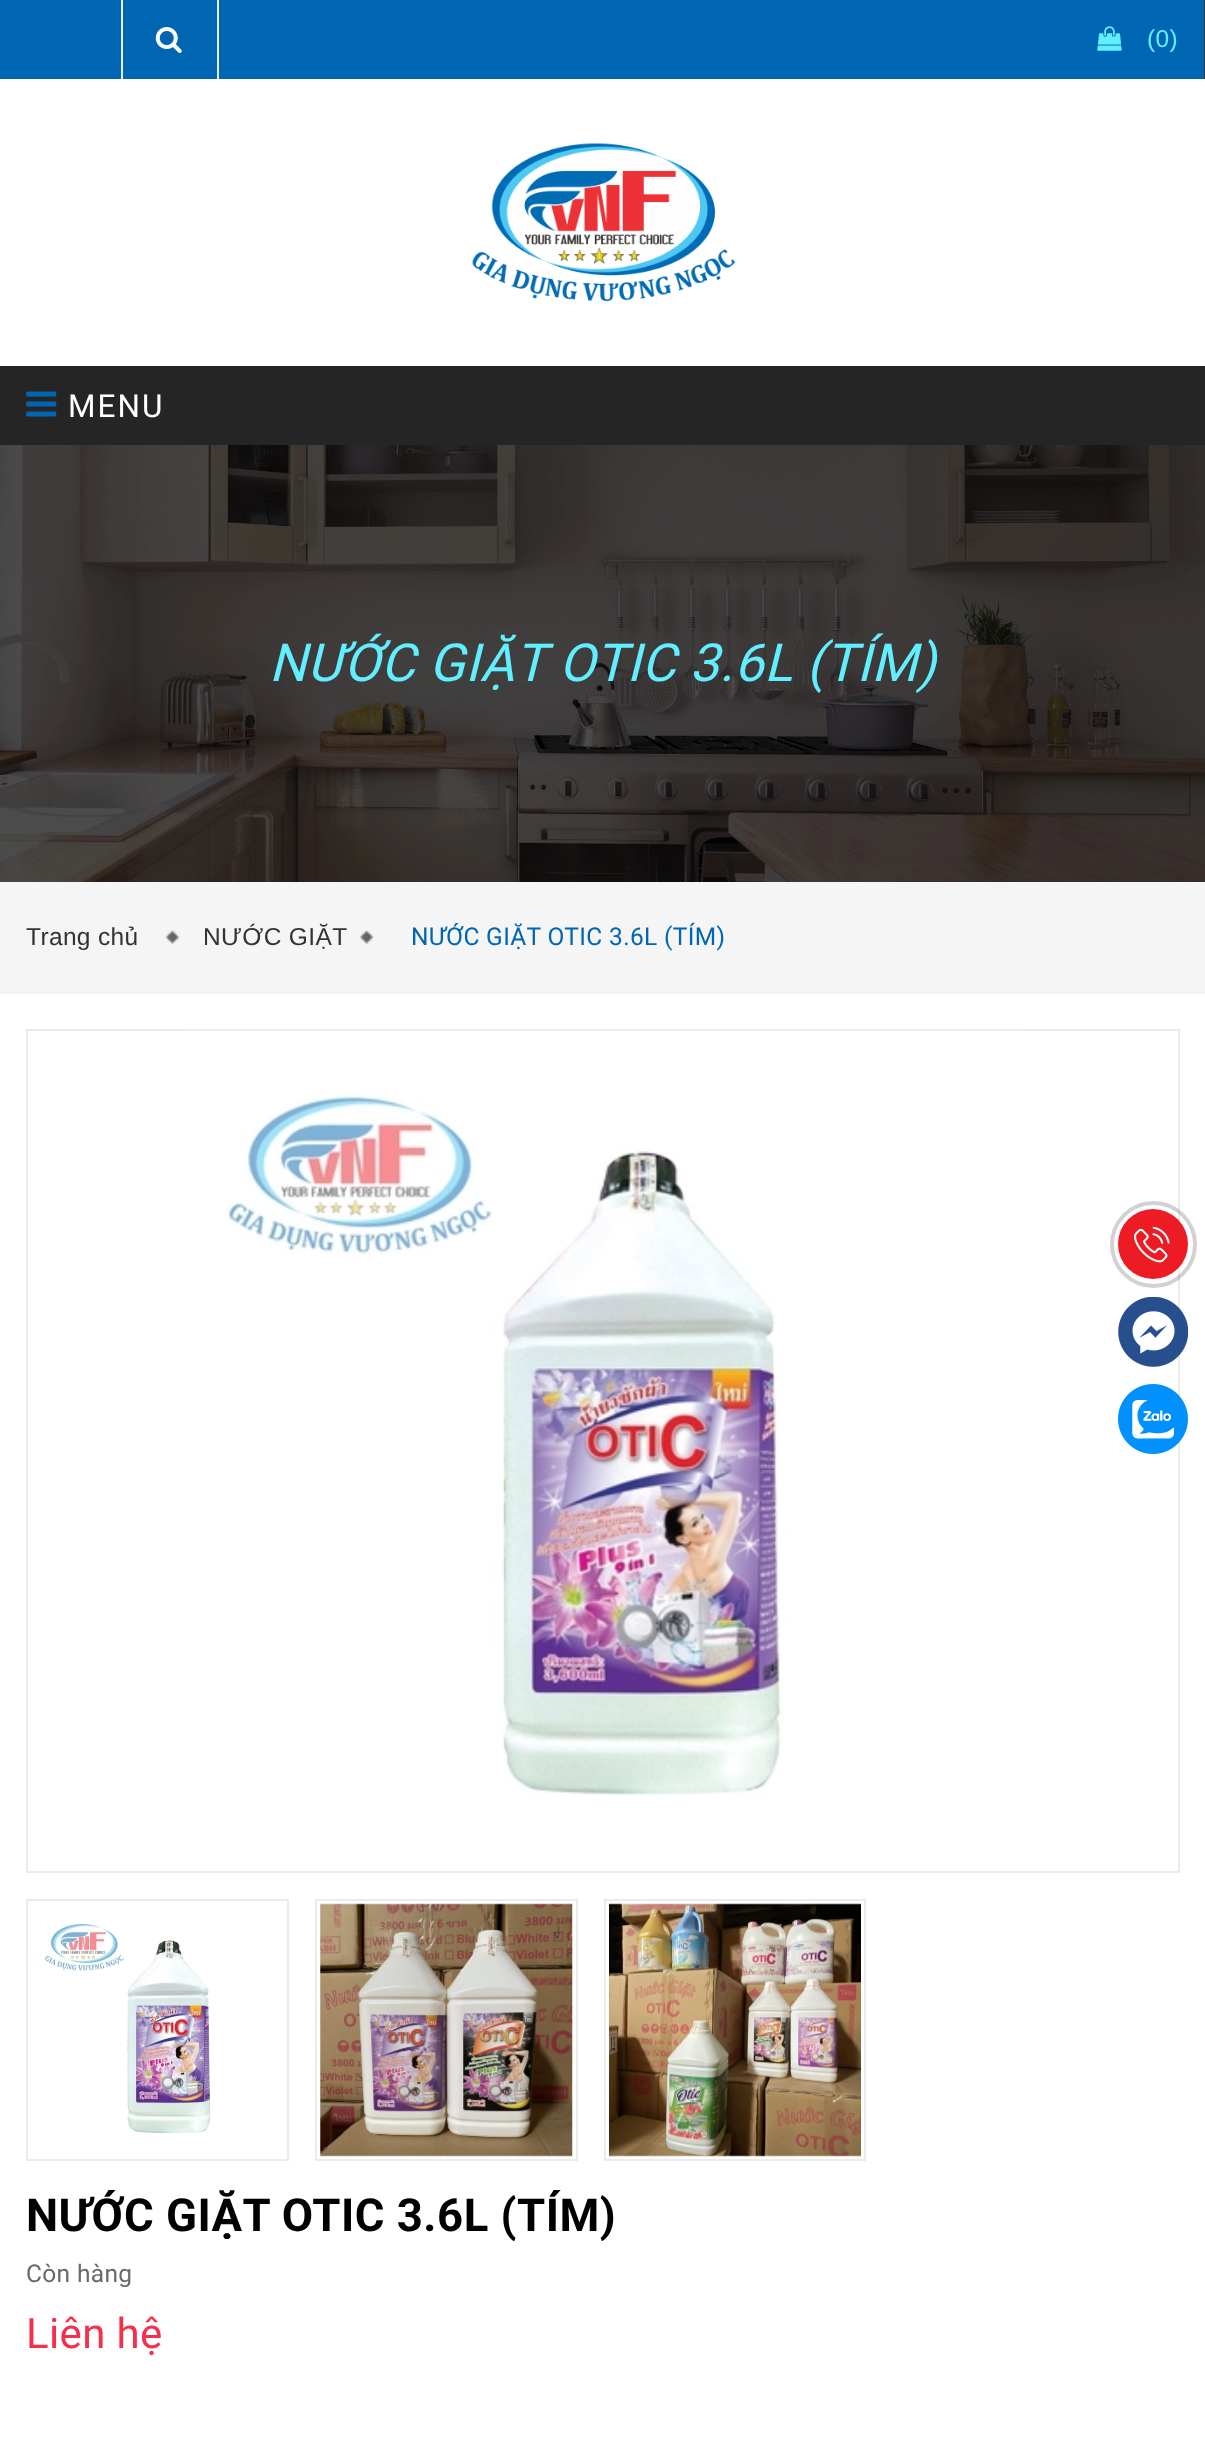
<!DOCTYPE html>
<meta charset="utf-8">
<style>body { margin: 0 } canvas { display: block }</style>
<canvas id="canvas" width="1205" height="2451"></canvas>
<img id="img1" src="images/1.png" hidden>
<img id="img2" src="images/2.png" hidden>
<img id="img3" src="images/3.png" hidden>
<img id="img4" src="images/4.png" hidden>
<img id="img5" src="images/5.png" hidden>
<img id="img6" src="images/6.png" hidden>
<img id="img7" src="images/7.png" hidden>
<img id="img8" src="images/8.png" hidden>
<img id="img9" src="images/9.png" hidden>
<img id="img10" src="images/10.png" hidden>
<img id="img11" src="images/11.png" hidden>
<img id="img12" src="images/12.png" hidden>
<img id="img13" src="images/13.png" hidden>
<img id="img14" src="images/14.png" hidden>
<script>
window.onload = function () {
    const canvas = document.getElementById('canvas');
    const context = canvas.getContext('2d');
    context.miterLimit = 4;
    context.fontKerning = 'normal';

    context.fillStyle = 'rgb(255, 255, 255)';
    context.fillRect(0, 0, 1205, 2451);
    context.fillStyle = 'rgb(0, 102, 179)';
    context.fillRect(0, 0, 1204, 79);
    context.fillStyle = 'rgb(54, 54, 54)';
    context.fillRect(1204, 0, 1, 79);
    context.fillStyle = 'rgb(238, 238, 238)';
    context.fillRect(217, 0, 2, 79);
    context.fillRect(121, 0, 2, 79);
    context.drawImage(document.getElementById('img1'), 155, 27, 27, 26);
    context.drawImage(document.getElementById('img2'), 1097, 26, 25, 25);
    context.drawImage(document.getElementById('img3'), 472, 143, 263, 158);
    context.fillStyle = 'rgb(37, 37, 37)';
    context.fillRect(0, 366, 1205, 79);
    context.drawImage(document.getElementById('img4'), 26, 391, 31, 26);
    context.drawImage(document.getElementById('img5'), 0, 445, 1205, 437);
    context.fillStyle = 'rgb(245, 245, 245)';
    context.fillRect(0, 882, 1205, 112);
    context.drawImage(document.getElementById('img6'), 165, 930, 14, 14);
    context.drawImage(document.getElementById('img7'), 360, 930, 14, 14);
    context.strokeStyle = 'rgb(235, 235, 235)';
    context.lineWidth = 2;
    context.strokeRect(27, 1030, 1152, 842);
    context.drawImage(document.getElementById('img8'), 184, 1030, 840, 766);
    context.strokeRect(27, 1900, 261, 260);
    context.drawImage(document.getElementById('img9'), 44, 1923, 167, 211);
    context.strokeRect(316, 1900, 261, 260);
    context.drawImage(document.getElementById('img10'), 320, 1903, 253, 254);
    context.strokeRect(605, 1900, 260, 260);
    context.drawImage(document.getElementById('img11'), 609, 1903, 252, 254);
    context.beginPath();
    context.arc(1153.5, 1244.5, 41.5, 0, 2 * Math.PI);
    context.strokeStyle = 'rgba(30, 30, 30, 0.2)';
    context.lineWidth = 4;
    context.stroke();
    context.fillStyle = 'rgb(237, 27, 35)';
    context.beginPath();
    context.arc(1153, 1244, 35, 0, 2 * Math.PI);
    context.fill();
    context.drawImage(document.getElementById('img12'), 1134, 1227, 36, 36);
    context.drawImage(document.getElementById('img13'), 1118, 1297, 70, 70);
    context.drawImage(document.getElementById('img14'), 1118, 1384, 70, 70);
    context.letterSpacing = '0.35px';
    context.font = '24.5px Liberation Sans';
    context.fillStyle = 'rgb(97, 239, 255)';
    context.fillText('(0)', 1147, 47);
    context.letterSpacing = '2px';
    context.font = '31.5px Roboto';
    context.fillStyle = 'rgb(255, 255, 255)';
    context.fillText('MENU', 68, 417);
    context.letterSpacing = '0.5px';
    context.font = 'italic 52.5px Roboto';
    context.fillStyle = 'rgb(97, 239, 255)';
    context.fillText('NƯỚC GIẶT OTIC 3.6L (TÍM)', 269, 681);
    context.letterSpacing = '0.35px';
    context.font = '24.5px Liberation Sans';
    context.fillStyle = 'rgb(51, 51, 51)';
    context.fillText('Trang chủ', 26, 945);
    context.fillText('NƯỚC GIẶT', 203, 945);
    context.font = '24.5px Roboto';
    context.fillStyle = 'rgb(0, 102, 179)';
    context.fillText('NƯỚC GIẶT OTIC 3.6L (TÍM)', 411, 945);
    context.letterSpacing = '0.5px';
    context.font = 'bold 45.5px Roboto';
    context.fillStyle = 'rgb(0, 0, 0)';
    context.fillText('NƯỚC GIẶT OTIC 3.6L (TÍM)', 26, 2231);
    context.letterSpacing = '0.35px';
    context.font = '24.5px Roboto';
    context.fillStyle = 'rgb(106, 106, 106)';
    context.fillText('Còn hàng', 26, 2282);
    context.font = '42px Roboto';
    context.fillStyle = 'rgb(244, 48, 76)';
    context.fillText('Liên hệ', 26, 2348);
};
</script>
